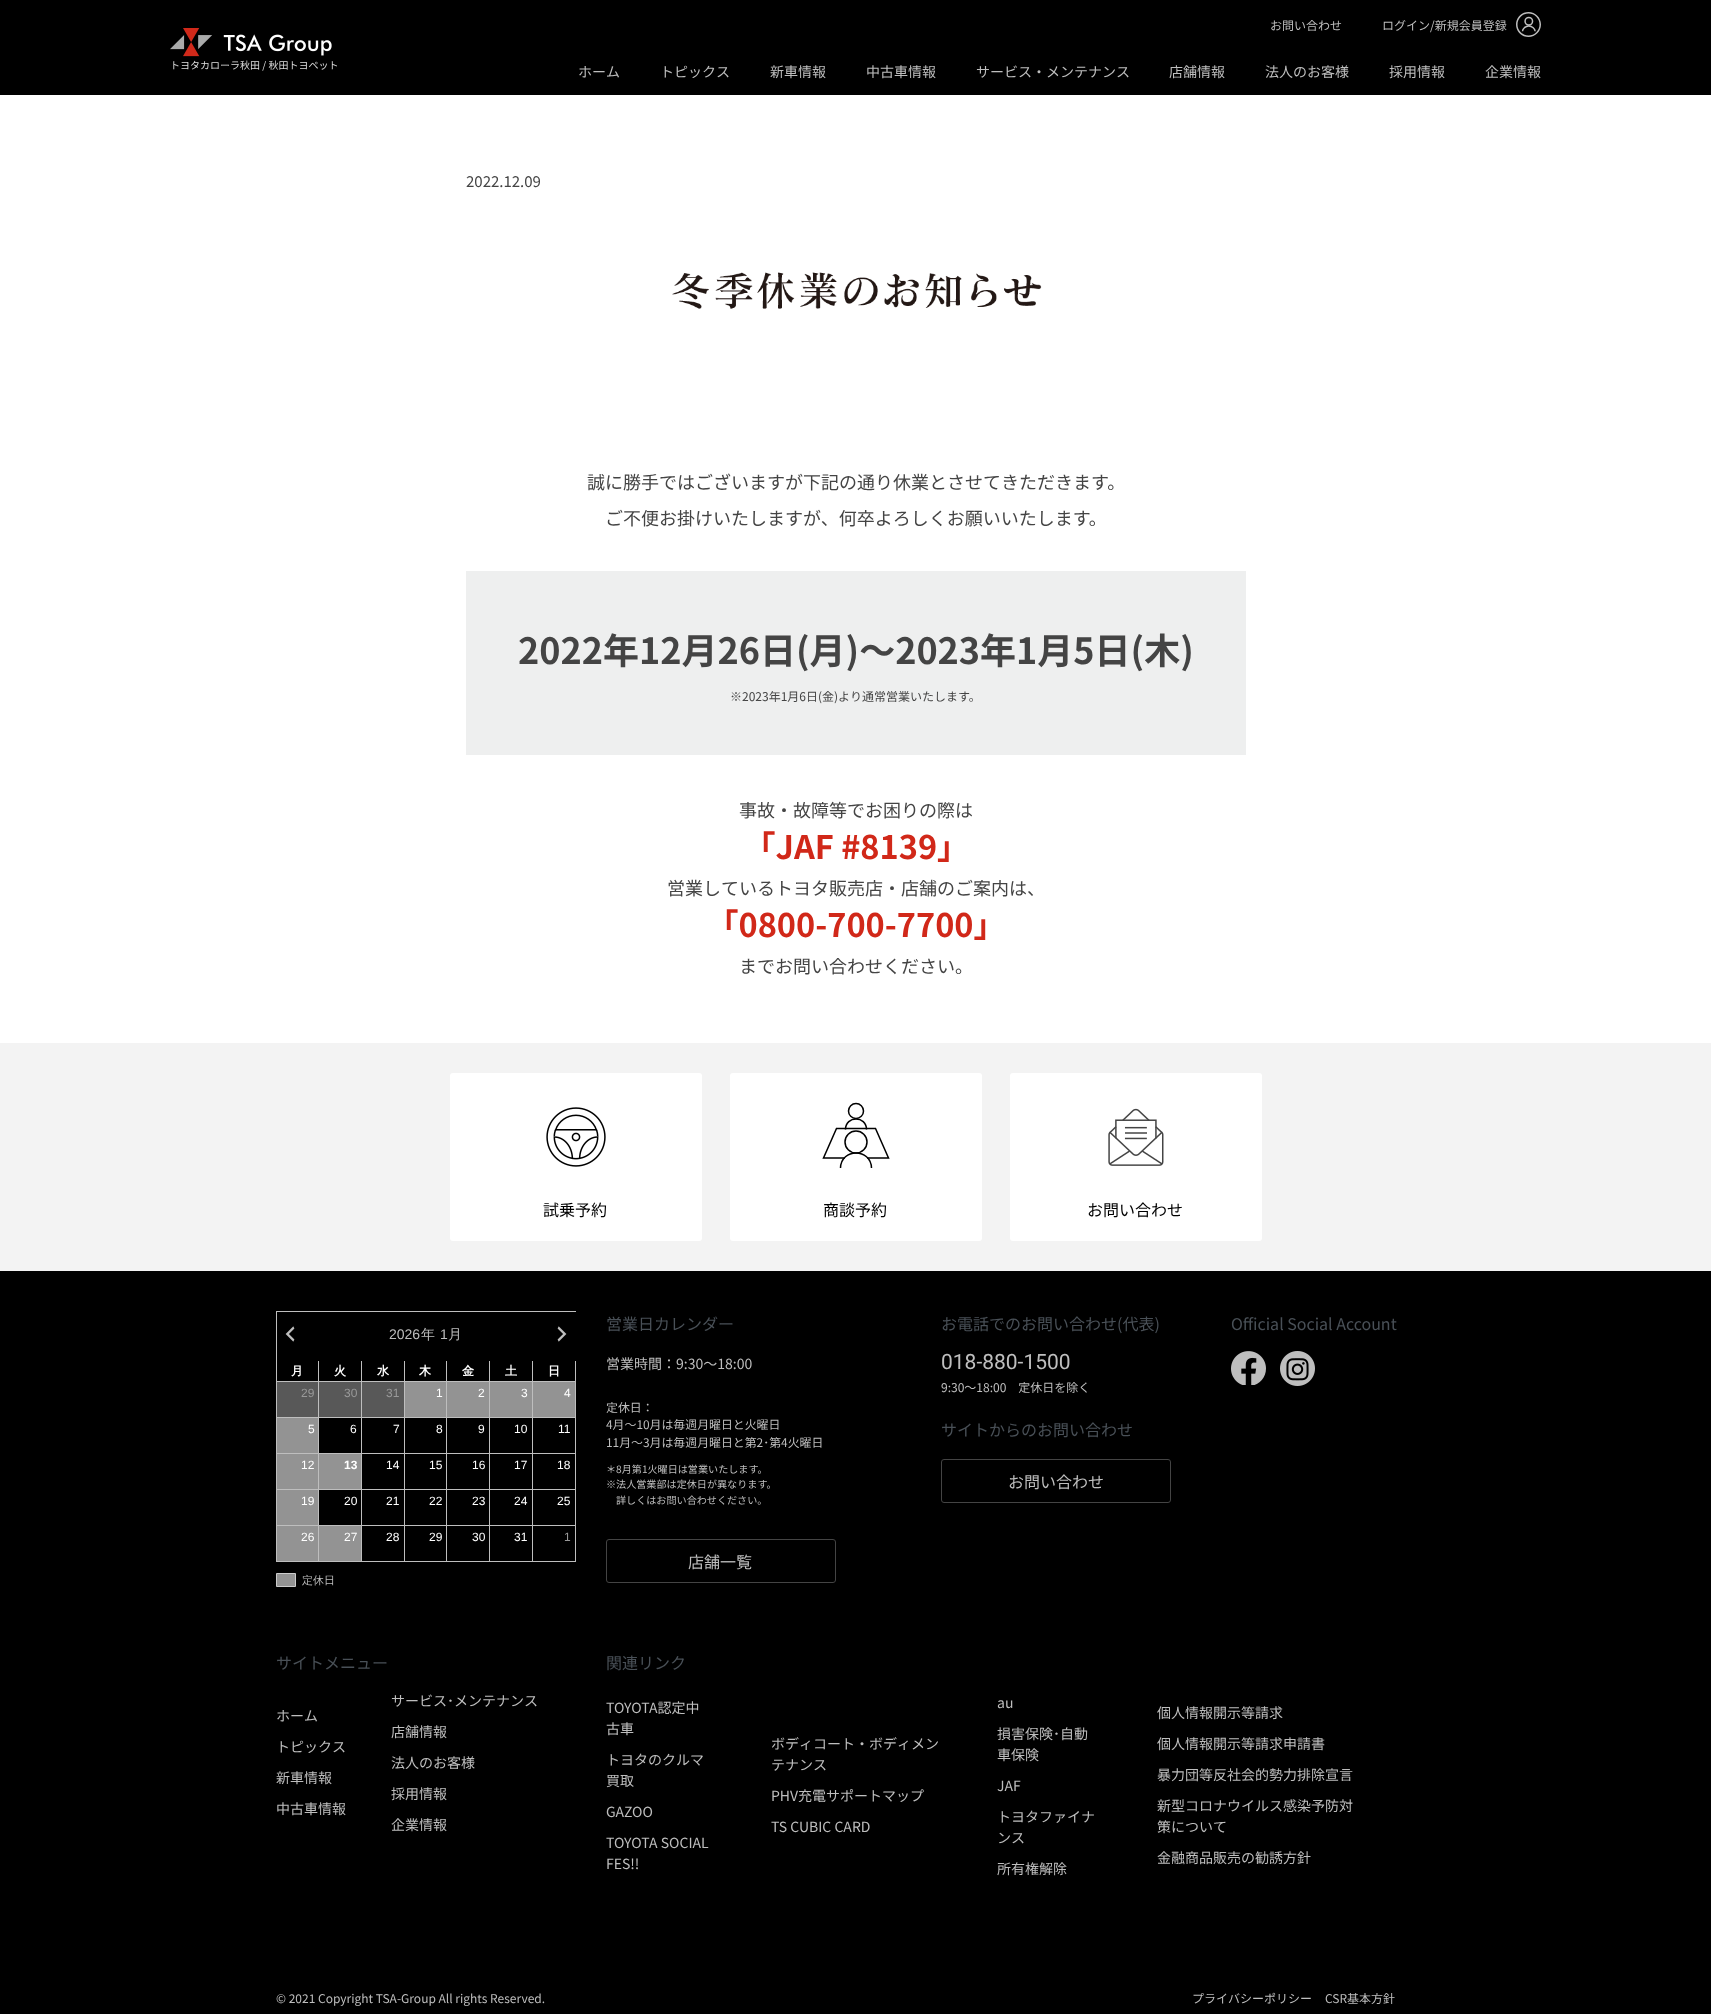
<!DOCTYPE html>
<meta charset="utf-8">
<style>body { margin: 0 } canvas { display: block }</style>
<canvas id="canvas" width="1711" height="2014"></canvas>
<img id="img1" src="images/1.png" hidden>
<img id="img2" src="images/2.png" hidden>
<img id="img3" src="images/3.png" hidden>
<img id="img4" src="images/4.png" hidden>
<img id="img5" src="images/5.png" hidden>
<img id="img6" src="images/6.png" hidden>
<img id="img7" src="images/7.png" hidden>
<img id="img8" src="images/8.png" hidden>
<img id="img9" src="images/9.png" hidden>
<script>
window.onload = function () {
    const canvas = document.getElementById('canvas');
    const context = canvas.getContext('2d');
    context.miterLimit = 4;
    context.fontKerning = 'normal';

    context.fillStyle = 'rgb(255, 255, 255)';
    context.fillRect(0, 0, 1711, 2014);
    context.fillStyle = 'rgb(0, 0, 0)';
    context.fillRect(0, 0, 1711, 95);
    context.drawImage(document.getElementById('img1'), 170, 28, 162, 29);
    context.drawImage(document.getElementById('img2'), 1516, 12, 25, 25);
    context.drawImage(document.getElementById('img3'), 672, 272, 370, 37);
    context.fillStyle = 'rgb(238, 239, 239)';
    context.fillRect(466, 571, 780, 184);
    context.fillStyle = 'rgb(243, 243, 243)';
    context.fillRect(0, 1043, 1711, 228);
    context.fillStyle = 'rgb(255, 255, 255)';
    context.beginPath();
    context.roundRect(450, 1073, 252, 168, 3);
    context.fill();
    context.drawImage(document.getElementById('img4'), 546, 1107, 60, 60);
    context.beginPath();
    context.roundRect(730, 1073, 252, 168, 3);
    context.fill();
    context.beginPath();
    context.arc(856, 1111, 7.5, 0, 2 * Math.PI);
    context.strokeStyle = 'rgb(0, 0, 0)';
    context.lineWidth = 1.5;
    context.stroke();
    context.beginPath();
    context.moveTo(845.5, 1129.5);
    context.bezierCurveTo(845.5, 1115.5, 866.5, 1115.5, 866.5, 1129.5);
    context.stroke();
    context.beginPath();
    context.moveTo(845, 1158);
    context.lineTo(823.5, 1158);
    context.lineTo(836.5, 1128.5);
    context.lineTo(875.5, 1128.5);
    context.lineTo(888.5, 1158);
    context.lineTo(867, 1158);
    context.stroke();
    context.beginPath();
    context.arc(856, 1142, 11, 0, 2 * Math.PI);
    context.stroke();
    context.beginPath();
    context.moveTo(840.5, 1168);
    context.bezierCurveTo(841, 1148, 871, 1148, 871.5, 1168);
    context.stroke();
    context.beginPath();
    context.roundRect(1010, 1073, 252, 168, 3);
    context.fill();
    context.drawImage(document.getElementById('img5'), 1108, 1108, 56, 58);
    context.fillStyle = 'rgb(0, 0, 0)';
    context.fillRect(0, 1271, 1711, 743);
    context.beginPath();
    context.roundRect(606.5, 1539.5, 229, 43, 2.5);
    context.strokeStyle = 'rgb(68, 68, 68)';
    context.lineWidth = 1;
    context.stroke();
    context.beginPath();
    context.roundRect(941.5, 1459.5, 229, 43, 2.5);
    context.stroke();
    context.drawImage(document.getElementById('img6'), 1231, 1351, 35, 34);
    context.drawImage(document.getElementById('img7'), 1280, 1351, 35, 35);
    context.fillStyle = 'rgb(190, 190, 190)';
    context.fillRect(276, 1311, 300, 1);
    context.fillRect(276, 1561, 300, 1);
    context.fillRect(276, 1311, 1, 251);
    context.drawImage(document.getElementById('img8'), 285, 1326, 10, 16);
    context.drawImage(document.getElementById('img9'), 557, 1326, 10, 16);
    context.fillRect(318, 1361, 1, 20);
    context.fillRect(361, 1361, 1, 20);
    context.fillRect(404, 1361, 1, 20);
    context.fillRect(446, 1361, 1, 20);
    context.fillRect(489, 1361, 1, 20);
    context.fillRect(532, 1361, 1, 20);
    context.fillRect(575, 1361, 1, 20);
    context.fillRect(277, 1381, 299, 1);
    context.fillRect(318, 1381, 1, 36);
    context.fillStyle = 'rgb(88, 88, 88)';
    context.fillRect(277, 1382, 41, 35);
    context.fillStyle = 'rgb(190, 190, 190)';
    context.fillRect(361, 1381, 1, 36);
    context.fillStyle = 'rgb(88, 88, 88)';
    context.fillRect(319, 1382, 42, 35);
    context.fillStyle = 'rgb(190, 190, 190)';
    context.fillRect(404, 1381, 1, 36);
    context.fillStyle = 'rgb(88, 88, 88)';
    context.fillRect(362, 1382, 42, 35);
    context.fillStyle = 'rgb(190, 190, 190)';
    context.fillRect(446, 1381, 1, 36);
    context.fillStyle = 'rgb(147, 147, 147)';
    context.fillRect(405, 1382, 41, 35);
    context.fillStyle = 'rgb(190, 190, 190)';
    context.fillRect(489, 1381, 1, 36);
    context.fillStyle = 'rgb(147, 147, 147)';
    context.fillRect(447, 1382, 42, 35);
    context.fillStyle = 'rgb(190, 190, 190)';
    context.fillRect(532, 1381, 1, 36);
    context.fillStyle = 'rgb(147, 147, 147)';
    context.fillRect(490, 1382, 42, 35);
    context.fillStyle = 'rgb(190, 190, 190)';
    context.fillRect(575, 1381, 1, 36);
    context.fillStyle = 'rgb(147, 147, 147)';
    context.fillRect(533, 1382, 42, 35);
    context.fillStyle = 'rgb(190, 190, 190)';
    context.fillRect(277, 1417, 299, 1);
    context.fillRect(318, 1417, 1, 36);
    context.fillStyle = 'rgb(147, 147, 147)';
    context.fillRect(277, 1418, 41, 35);
    context.fillStyle = 'rgb(190, 190, 190)';
    context.fillRect(361, 1417, 1, 36);
    context.fillRect(404, 1417, 1, 36);
    context.fillRect(446, 1417, 1, 36);
    context.fillRect(489, 1417, 1, 36);
    context.fillRect(532, 1417, 1, 36);
    context.fillRect(575, 1417, 1, 36);
    context.fillRect(277, 1453, 299, 1);
    context.fillRect(318, 1453, 1, 36);
    context.fillStyle = 'rgb(147, 147, 147)';
    context.fillRect(277, 1454, 41, 35);
    context.fillStyle = 'rgb(190, 190, 190)';
    context.fillRect(361, 1453, 1, 36);
    context.fillStyle = 'rgb(147, 147, 147)';
    context.fillRect(319, 1454, 42, 35);
    context.fillStyle = 'rgb(190, 190, 190)';
    context.fillRect(404, 1453, 1, 36);
    context.fillRect(446, 1453, 1, 36);
    context.fillRect(489, 1453, 1, 36);
    context.fillRect(532, 1453, 1, 36);
    context.fillRect(575, 1453, 1, 36);
    context.fillRect(277, 1489, 299, 1);
    context.fillRect(318, 1489, 1, 36);
    context.fillStyle = 'rgb(147, 147, 147)';
    context.fillRect(277, 1490, 41, 35);
    context.fillStyle = 'rgb(190, 190, 190)';
    context.fillRect(361, 1489, 1, 36);
    context.fillRect(404, 1489, 1, 36);
    context.fillRect(446, 1489, 1, 36);
    context.fillRect(489, 1489, 1, 36);
    context.fillRect(532, 1489, 1, 36);
    context.fillRect(575, 1489, 1, 36);
    context.fillRect(277, 1525, 299, 1);
    context.fillRect(318, 1525, 1, 36);
    context.fillStyle = 'rgb(147, 147, 147)';
    context.fillRect(277, 1526, 41, 35);
    context.fillStyle = 'rgb(190, 190, 190)';
    context.fillRect(361, 1525, 1, 36);
    context.fillStyle = 'rgb(147, 147, 147)';
    context.fillRect(319, 1526, 42, 35);
    context.fillStyle = 'rgb(190, 190, 190)';
    context.fillRect(404, 1525, 1, 36);
    context.fillRect(446, 1525, 1, 36);
    context.fillRect(489, 1525, 1, 36);
    context.fillRect(532, 1525, 1, 36);
    context.fillRect(575, 1525, 1, 36);
    context.fillStyle = 'rgb(147, 147, 147)';
    context.beginPath();
    context.rect(276.5, 1573.5, 19, 13);
    context.fill();
    context.strokeStyle = 'rgb(204, 204, 204)';
    context.stroke();
    context.font = '10px Noto Sans CJK JP';
    context.fillStyle = 'rgb(222, 222, 222)';
    context.fillText('トヨタカローラ秋田 / 秋田トヨペット', 170, 69);
    context.font = '12px Noto Sans CJK JP';
    context.fillStyle = 'rgb(190, 190, 190)';
    context.fillText('お問い合わせ', 1270, 30);
    context.fillText('ログイン/新規会員登録', 1382, 30);
    context.font = '14px Noto Sans CJK JP';
    context.fillText('ホーム', 578, 77);
    context.fillText('トピックス', 660, 77);
    context.fillText('新車情報', 770, 77);
    context.fillText('中古車情報', 866, 77);
    context.fillText('サービス・メンテナンス', 976, 77);
    context.fillText('店舗情報', 1169, 77);
    context.fillText('法人のお客様', 1265, 77);
    context.fillText('採用情報', 1389, 77);
    context.fillText('企業情報', 1485, 77);
    context.font = '15px Noto Sans CJK JP';
    context.fillStyle = 'rgb(68, 68, 68)';
    context.fillText('2022.12.09', 466, 187);
    context.font = '18px Noto Sans CJK JP';
    context.fillText('誠に勝手ではございますが下記の通り休業とさせてきただきます。', 587, 489);
    context.fillText('ご不便お掛けいたしますが、何卒よろしくお願いいたします。', 605, 525);
    context.font = '100 36px Noto Sans JP';
    context.fillText('2022年12月26日(月)〜2023年1月5日(木)', 518, 664);
    context.font = '12px Noto Sans CJK JP';
    context.fillText('※2023年1月6日(金)より通常営業いたします。', 730, 701);
    context.font = '18px Noto Sans CJK JP';
    context.fillText('事故・故障等でお困りの際は', 739, 817);
    context.font = '100 32.5px Noto Sans JP';
    context.fillStyle = 'rgb(209, 40, 25)';
    context.fillText('「JAF #8139」', 743, 859);
    context.font = '18px Noto Sans CJK JP';
    context.fillStyle = 'rgb(68, 68, 68)';
    context.fillText('営業しているトヨタ販売店・店舗のご案内は、', 667, 895);
    context.font = '100 32.5px Noto Sans JP';
    context.fillStyle = 'rgb(209, 40, 25)';
    context.fillText('「0800-700-7700」', 706, 937);
    context.font = '18px Noto Sans CJK JP';
    context.fillStyle = 'rgb(68, 68, 68)';
    context.fillText('までお問い合わせください。', 739, 973);
    context.font = '16px Noto Sans CJK JP';
    context.fillStyle = 'rgb(0, 0, 0)';
    context.fillText('試乗予約', 543, 1216);
    context.fillText('商談予約', 823, 1216);
    context.fillText('お問い合わせ', 1087, 1216);
    context.fillStyle = 'rgb(73, 80, 87)';
    context.fillText('営業日カレンダー', 606, 1330);
    context.font = '14px Noto Sans CJK JP';
    context.fillStyle = 'rgb(190, 190, 190)';
    context.fillText('営業時間：9:30〜18:00', 606, 1369);
    context.font = '11.9px Noto Sans CJK JP';
    context.fillText('定休日：', 606, 1412);
    context.fillText('4月～10月は毎週月曜日と火曜日', 606, 1429);
    context.fillText('11月～3月は毎週月曜日と第2･第4火曜日', 606, 1447);
    context.font = '10.1px Noto Sans CJK JP';
    context.fillText('＊8月第1火曜日は営業いたします。', 606, 1473);
    context.fillText('※法人営業部は定休日が異なります。', 606, 1488);
    context.fillText('詳しくはお問い合わせください。', 616, 1504);
    context.font = '16px Noto Sans CJK JP';
    context.fillText('店舗一覧', 688, 1568);
    context.fillStyle = 'rgb(73, 80, 87)';
    context.fillText('お電話でのお問い合わせ(代表)', 941, 1330);
    context.font = '21px Roboto';
    context.fillStyle = 'rgb(190, 190, 190)';
    context.fillText('018-880-1500', 941, 1369);
    context.font = '12px Noto Sans CJK JP';
    context.fillText('9:30〜18:00　定休日を除く', 941, 1392);
    context.font = '16px Noto Sans CJK JP';
    context.fillStyle = 'rgb(73, 80, 87)';
    context.fillText('サイトからのお問い合わせ', 941, 1436);
    context.fillStyle = 'rgb(190, 190, 190)';
    context.fillText('お問い合わせ', 1008, 1488);
    context.fillStyle = 'rgb(73, 80, 87)';
    context.fillText('Official Social Account', 1231, 1330);
    context.font = '14px Liberation Sans';
    context.fillStyle = 'rgb(190, 190, 190)';
    context.fillText('2026', 389, 1339);
    context.font = '500 14px WenQuanYi Zen Hei';
    context.fillText('年', 421, 1339);
    context.font = '14px Liberation Sans';
    context.fillText('1', 440, 1339);
    context.font = '500 14px WenQuanYi Zen Hei';
    context.fillText('月', 448, 1339);
    context.font = 'bold 12px WenQuanYi Zen Hei';
    context.fillStyle = 'rgb(255, 255, 255)';
    context.fillText('月', 291, 1375);
    context.fillText('火', 334, 1375);
    context.fillText('水', 377, 1375);
    context.fillText('木', 419, 1375);
    context.fillText('金', 462, 1375);
    context.fillText('土', 505, 1375);
    context.fillText('日', 548, 1375);
    context.font = '12px Liberation Sans';
    context.fillStyle = 'rgb(153, 153, 153)';
    context.fillText('29', 301, 1397);
    context.fillText('30', 344, 1397);
    context.fillText('31', 386, 1397);
    context.fillStyle = 'rgb(255, 255, 255)';
    context.fillText('1', 436, 1397);
    context.fillText('2', 478, 1397);
    context.fillText('3', 521, 1397);
    context.fillText('4', 564, 1397);
    context.fillText('5', 308, 1433);
    context.fillText('6', 350, 1433);
    context.fillText('7', 393, 1433);
    context.fillText('8', 436, 1433);
    context.fillText('9', 478, 1433);
    context.fillText('10', 514, 1433);
    context.fillText('11', 558, 1433);
    context.fillText('12', 301, 1469);
    context.font = 'bold 12px Liberation Sans';
    context.fillText('13', 344, 1469);
    context.font = '12px Liberation Sans';
    context.fillText('14', 386, 1469);
    context.fillText('15', 429, 1469);
    context.fillText('16', 472, 1469);
    context.fillText('17', 514, 1469);
    context.fillText('18', 557, 1469);
    context.fillText('19', 301, 1505);
    context.fillText('20', 344, 1505);
    context.fillText('21', 386, 1505);
    context.fillText('22', 429, 1505);
    context.fillText('23', 472, 1505);
    context.fillText('24', 514, 1505);
    context.fillText('25', 557, 1505);
    context.fillText('26', 301, 1541);
    context.fillText('27', 344, 1541);
    context.fillText('28', 386, 1541);
    context.fillText('29', 429, 1541);
    context.fillText('30', 472, 1541);
    context.fillText('31', 514, 1541);
    context.fillStyle = 'rgb(153, 153, 153)';
    context.fillText('1', 564, 1541);
    context.font = '500 11px WenQuanYi Zen Hei';
    context.fillStyle = 'rgb(190, 190, 190)';
    context.fillText('定休日', 302, 1584);
    context.font = '16px Noto Sans CJK JP';
    context.fillStyle = 'rgb(73, 80, 87)';
    context.fillText('サイトメニュー', 276, 1669);
    context.font = '14px Noto Sans CJK JP';
    context.fillStyle = 'rgb(190, 190, 190)';
    context.fillText('ホーム', 276, 1721);
    context.fillText('トピックス', 276, 1752);
    context.fillText('新車情報', 276, 1783);
    context.fillText('中古車情報', 276, 1814);
    context.fillText('サービス･メンテナンス', 391, 1706);
    context.fillText('店舗情報', 391, 1737);
    context.fillText('法人のお客様', 391, 1768);
    context.fillText('採用情報', 391, 1799);
    context.fillText('企業情報', 391, 1830);
    context.font = '16px Noto Sans CJK JP';
    context.fillStyle = 'rgb(73, 80, 87)';
    context.fillText('関連リンク', 606, 1669);
    context.font = '14px Noto Sans CJK JP';
    context.fillStyle = 'rgb(190, 190, 190)';
    context.fillText('TOYOTA認定中', 606, 1713);
    context.fillText('古車', 606, 1734);
    context.fillText('トヨタのクルマ', 606, 1765);
    context.fillText('買取', 606, 1786);
    context.fillText('GAZOO', 606, 1817);
    context.fillText('TOYOTA SOCIAL', 606, 1848);
    context.fillText('FES!!', 606, 1869);
    context.fillText('ボディコート・ボディメン', 771, 1749);
    context.fillText('テナンス', 771, 1770);
    context.fillText('PHV充電サポートマップ', 771, 1801);
    context.fillText('TS CUBIC CARD', 771, 1832);
    context.fillText('au', 997, 1708);
    context.fillText('損害保険･自動', 997, 1739);
    context.fillText('車保険', 997, 1760);
    context.fillText('JAF', 997, 1791);
    context.fillText('トヨタファイナ', 997, 1822);
    context.fillText('ンス', 997, 1843);
    context.fillText('所有権解除', 997, 1874);
    context.fillText('個人情報開示等請求', 1157, 1718);
    context.fillText('個人情報開示等請求申請書', 1157, 1749);
    context.fillText('暴力団等反社会的勢力排除宣言', 1157, 1780);
    context.fillText('新型コロナウイルス感染予防対', 1157, 1811);
    context.fillText('策について', 1157, 1832);
    context.fillText('金融商品販売の勧誘方針', 1157, 1863);
    context.font = '12px Noto Sans CJK JP';
    context.fillText('© 2021 Copyright TSA-Group All rights Reserved.', 276, 2003);
    context.fillText('プライバシーポリシー', 1192, 2003);
    context.fillText('CSR基本方針', 1325, 2003);
};
</script>
